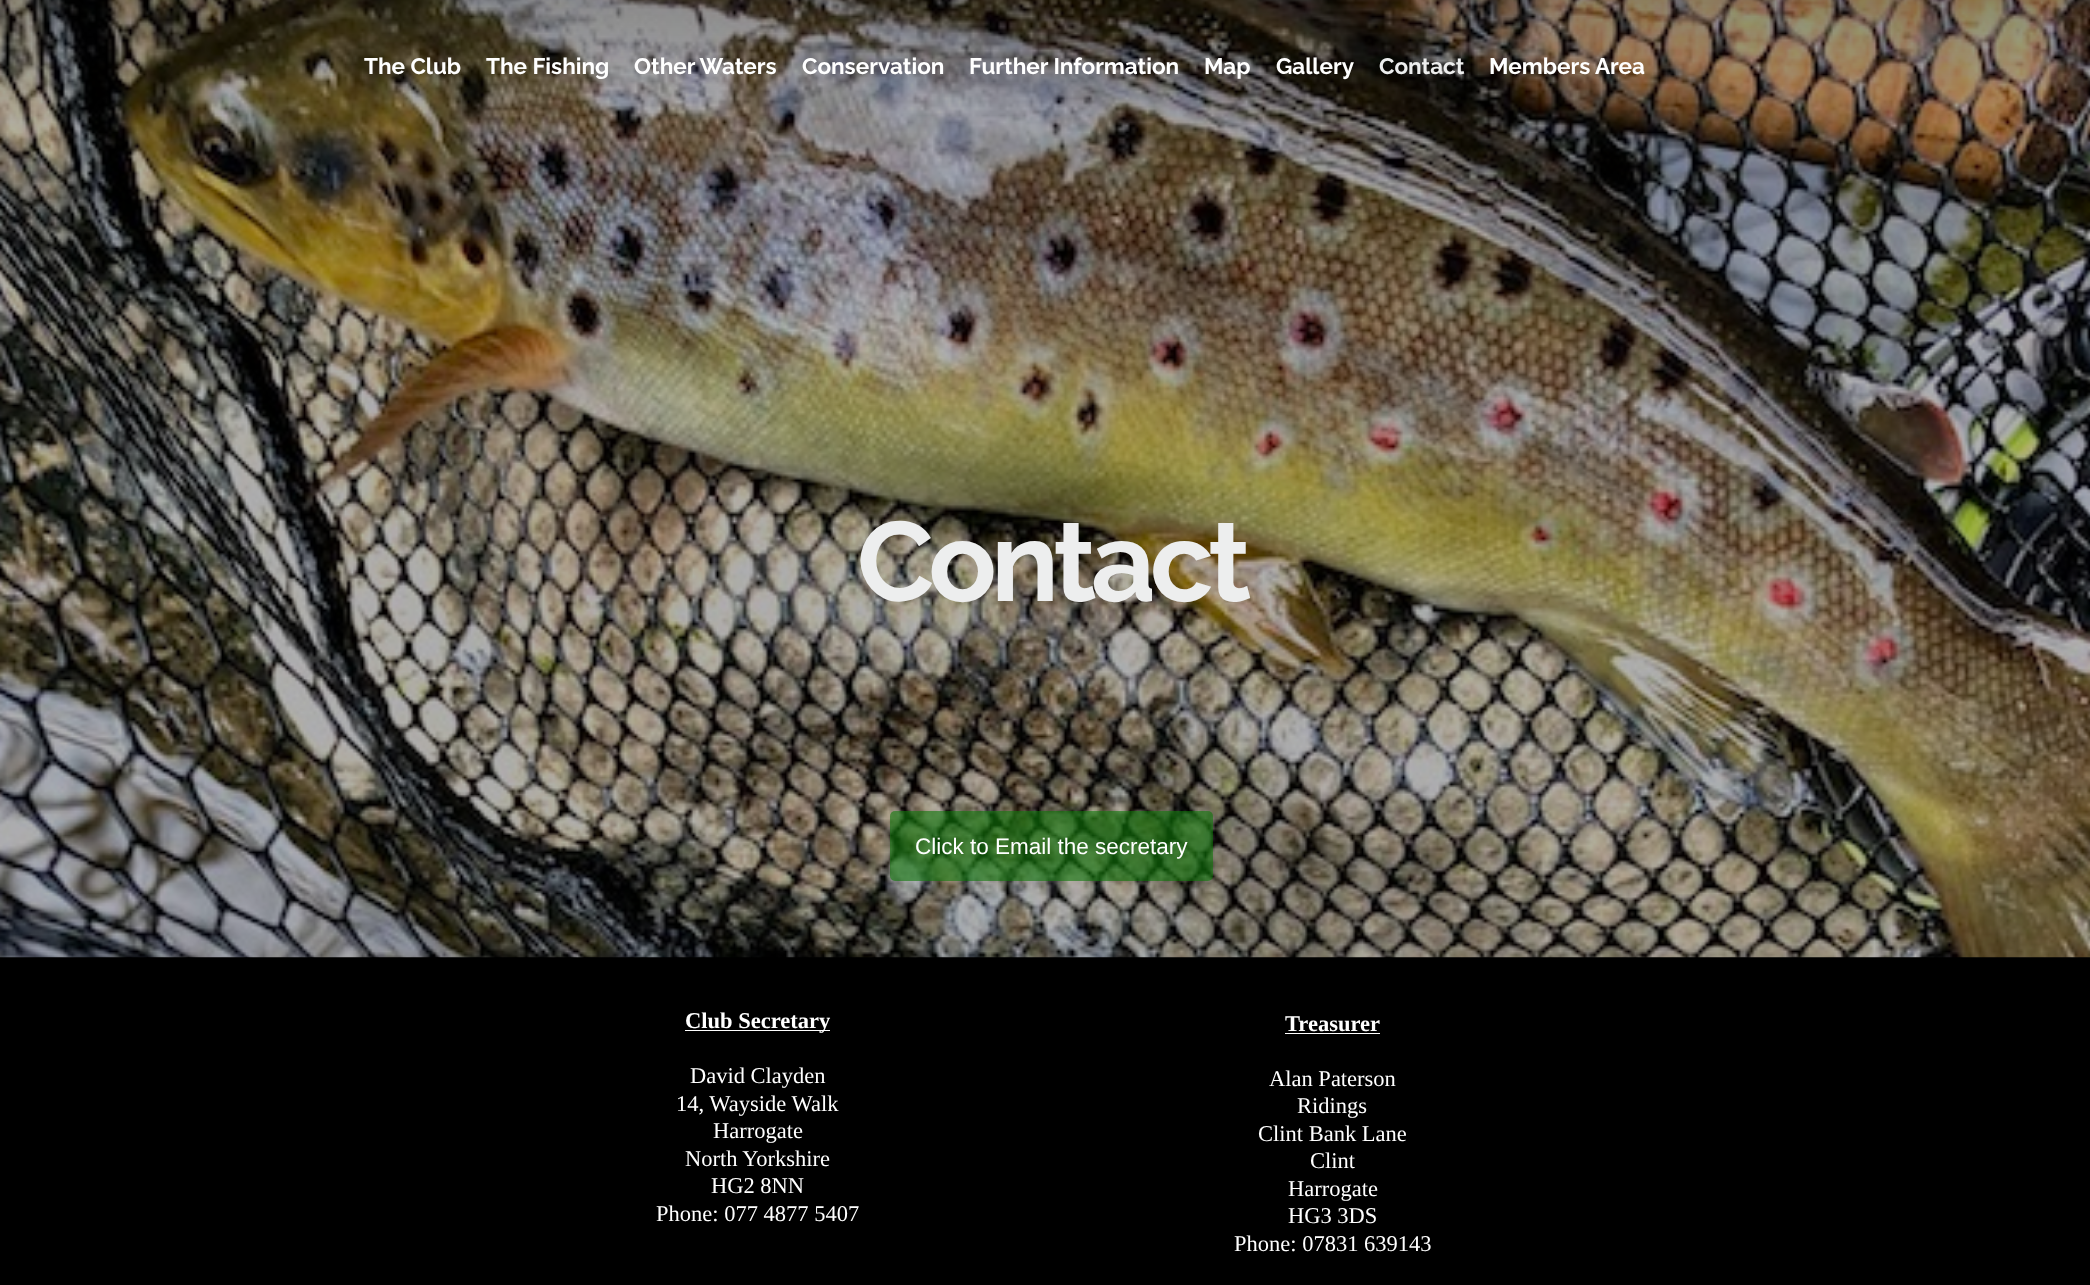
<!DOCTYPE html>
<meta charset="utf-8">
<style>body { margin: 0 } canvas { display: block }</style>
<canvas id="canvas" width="2090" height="1285"></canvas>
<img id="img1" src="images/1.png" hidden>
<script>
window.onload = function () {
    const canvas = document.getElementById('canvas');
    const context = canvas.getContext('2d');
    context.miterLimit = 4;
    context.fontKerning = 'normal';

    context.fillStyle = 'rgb(0, 0, 0)';
    context.fillRect(0, 0, 2090, 1285);
    context.drawImage(document.getElementById('img1'), 0, 0, 2090, 958);
    context.fillStyle = 'rgba(16, 119, 11, 0.61)';
    context.beginPath();
    context.roundRect(890, 811, 323, 70, 5);
    context.fill();
    context.fillStyle = 'rgb(255, 255, 255)';
    context.fillRect(685, 1030, 145, 1);
    context.fillRect(1285, 1033, 95, 1);
    context.font = 'bold 22.5px Raleway';
    context.fillText('The Club', 364, 74);
    context.fillText('The Fishing', 486, 74);
    context.fillText('Other Waters', 634, 74);
    context.fillText('Conservation', 802, 74);
    context.fillText('Further Information', 969, 74);
    context.fillText('Map', 1204, 74);
    context.fillText('Gallery', 1276, 74);
    context.fillStyle = 'rgb(237, 238, 238)';
    context.fillText('Contact', 1379, 74);
    context.fillStyle = 'rgb(255, 255, 255)';
    context.fillText('Members Area', 1489, 74);
    context.letterSpacing = '-5.5px';
    context.font = 'bold 112.5px Raleway';
    context.fillStyle = 'rgb(237, 238, 238)';
    context.fillText('Contact', 857, 601);
    context.letterSpacing = '0px';
    context.font = '22.5px Liberation Sans';
    context.fillStyle = 'rgb(255, 255, 255)';
    context.fillText('Click to Email the secretary', 915, 854);
    context.font = 'bold 22.5px Liberation Serif';
    context.fillText('Club Secretary', 685, 1028);
    context.font = '22.5px Liberation Serif';
    context.fillText('David Clayden', 690, 1083);
    context.fillText('14, Wayside Walk', 676, 1111);
    context.fillText('Harrogate', 713, 1138);
    context.fillText('North Yorkshire', 685, 1166);
    context.fillText('HG2 8NN', 711, 1193);
    context.fillText('Phone: 077 4877 5407', 656, 1221);
    context.font = 'bold 22.5px Liberation Serif';
    context.fillText('Treasurer', 1285, 1031);
    context.font = '22.5px Liberation Serif';
    context.fillText('Alan Paterson', 1269, 1086);
    context.fillText('Ridings', 1297, 1113);
    context.fillText('Clint Bank Lane', 1258, 1141);
    context.fillText('Clint', 1310, 1168);
    context.fillText('Harrogate', 1288, 1196);
    context.fillText('HG3 3DS', 1288, 1223);
    context.fillText('Phone: 07831 639143', 1234, 1251);
};
</script>
